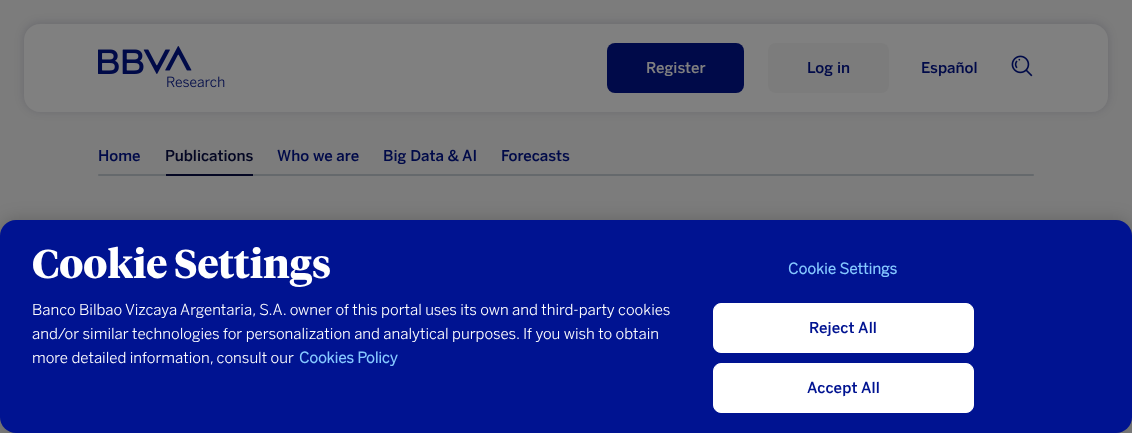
<!DOCTYPE html>
<meta charset="utf-8">
<style>body { margin: 0 } canvas { display: block }</style>
<canvas id="canvas" width="1132" height="433"></canvas>
<img id="img1" src="images/1.png" hidden>
<img id="img2" src="images/2.png" hidden>
<script>
window.onload = function () {
    const canvas = document.getElementById('canvas');
    const context = canvas.getContext('2d');
    context.miterLimit = 4;
    context.fontKerning = 'normal';

    context.fillStyle = 'rgb(124, 124, 124)';
    context.fillRect(0, 0, 1132, 433);
    context.fillStyle = 'rgba(4, 7, 35, 0.15)';
    context.filter = 'blur(5px)';
    context.beginPath();
    context.roundRect(24, 23, 1084, 88, 16);
    context.fill();
    context.filter = 'none';
    context.fillStyle = 'rgb(128, 128, 128)';
    context.beginPath();
    context.roundRect(24, 24, 1084, 88, 16);
    context.fill();
    context.drawImage(document.getElementById('img1'), 98, 46, 127, 42);
    context.fillStyle = 'rgb(0, 10, 73)';
    context.beginPath();
    context.roundRect(607, 43, 137, 50, 8);
    context.fill();
    context.fillStyle = 'rgb(124, 124, 124)';
    context.beginPath();
    context.roundRect(768, 43, 121, 50, 8);
    context.fill();
    context.drawImage(document.getElementById('img2'), 1011, 55, 22, 22);
    context.fillStyle = 'rgb(101, 105, 108)';
    context.beginPath();
    context.roundRect(98, 174, 936, 2, 1);
    context.fill();
    context.fillStyle = 'rgb(4, 7, 35)';
    context.fillRect(166, 174, 87, 2);
    context.fillStyle = 'rgba(0, 0, 0, 0.2)';
    context.filter = 'blur(9px)';
    context.beginPath();
    context.roundRect(0, 220, 1132, 213, 16);
    context.fill();
    context.filter = 'none';
    context.fillStyle = 'rgb(0, 19, 145)';
    context.beginPath();
    context.roundRect(0, 220, 1132, 213, 16);
    context.fill();
    context.fillStyle = 'rgb(255, 255, 255)';
    context.beginPath();
    context.roundRect(713.5, 303.5, 260, 49, 7.5);
    context.fill();
    context.strokeStyle = 'rgb(255, 255, 255)';
    context.stroke();
    context.beginPath();
    context.roundRect(713.5, 363.5, 260, 49, 7.5);
    context.fill();
    context.stroke();
    context.font = '500 15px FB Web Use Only';
    context.fillStyle = 'rgb(128, 128, 128)';
    context.fillText('Register', 646, 73);
    context.fillStyle = 'rgb(0, 10, 73)';
    context.fillText('Log in', 807, 73);
    context.fillText('Español', 921, 73);
    context.fillText('Home', 98, 161);
    context.fillStyle = 'rgb(4, 7, 35)';
    context.fillText('Publications', 165, 161);
    context.fillStyle = 'rgb(0, 10, 73)';
    context.fillText('Who we are', 277, 161);
    context.fillText('Big Data & AI', 383, 161);
    context.fillText('Forecasts', 501, 161);
    context.font = 'bold 40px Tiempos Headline';
    context.fillStyle = 'rgb(255, 255, 255)';
    context.fillText('Cookie Settings', 32, 278);
    context.font = '300 15px FB Web Use Only';
    context.fillText('Banco Bilbao Vizcaya Argentaria, S.A. owner of this portal uses its own and third-party cookies', 32, 315);
    context.fillText('and/or similar technologies for personalization and analytical purposes. If you wish to obtain', 32, 339);
    context.fillText('more detailed information, consult our', 32, 363);
    context.font = 'bold 15px FB Web Use Only';
    context.fillStyle = 'rgb(133, 200, 255)';
    context.fillText('Cookies Policy', 299, 363);
    context.letterSpacing = '0.1px';
    context.fillText('Cookie Settings', 788, 274);
    context.font = '500 15px FB Web Use Only';
    context.fillStyle = 'rgb(0, 19, 145)';
    context.fillText('Reject All', 809, 333);
    context.fillText('Accept All', 807, 393);
};
</script>
